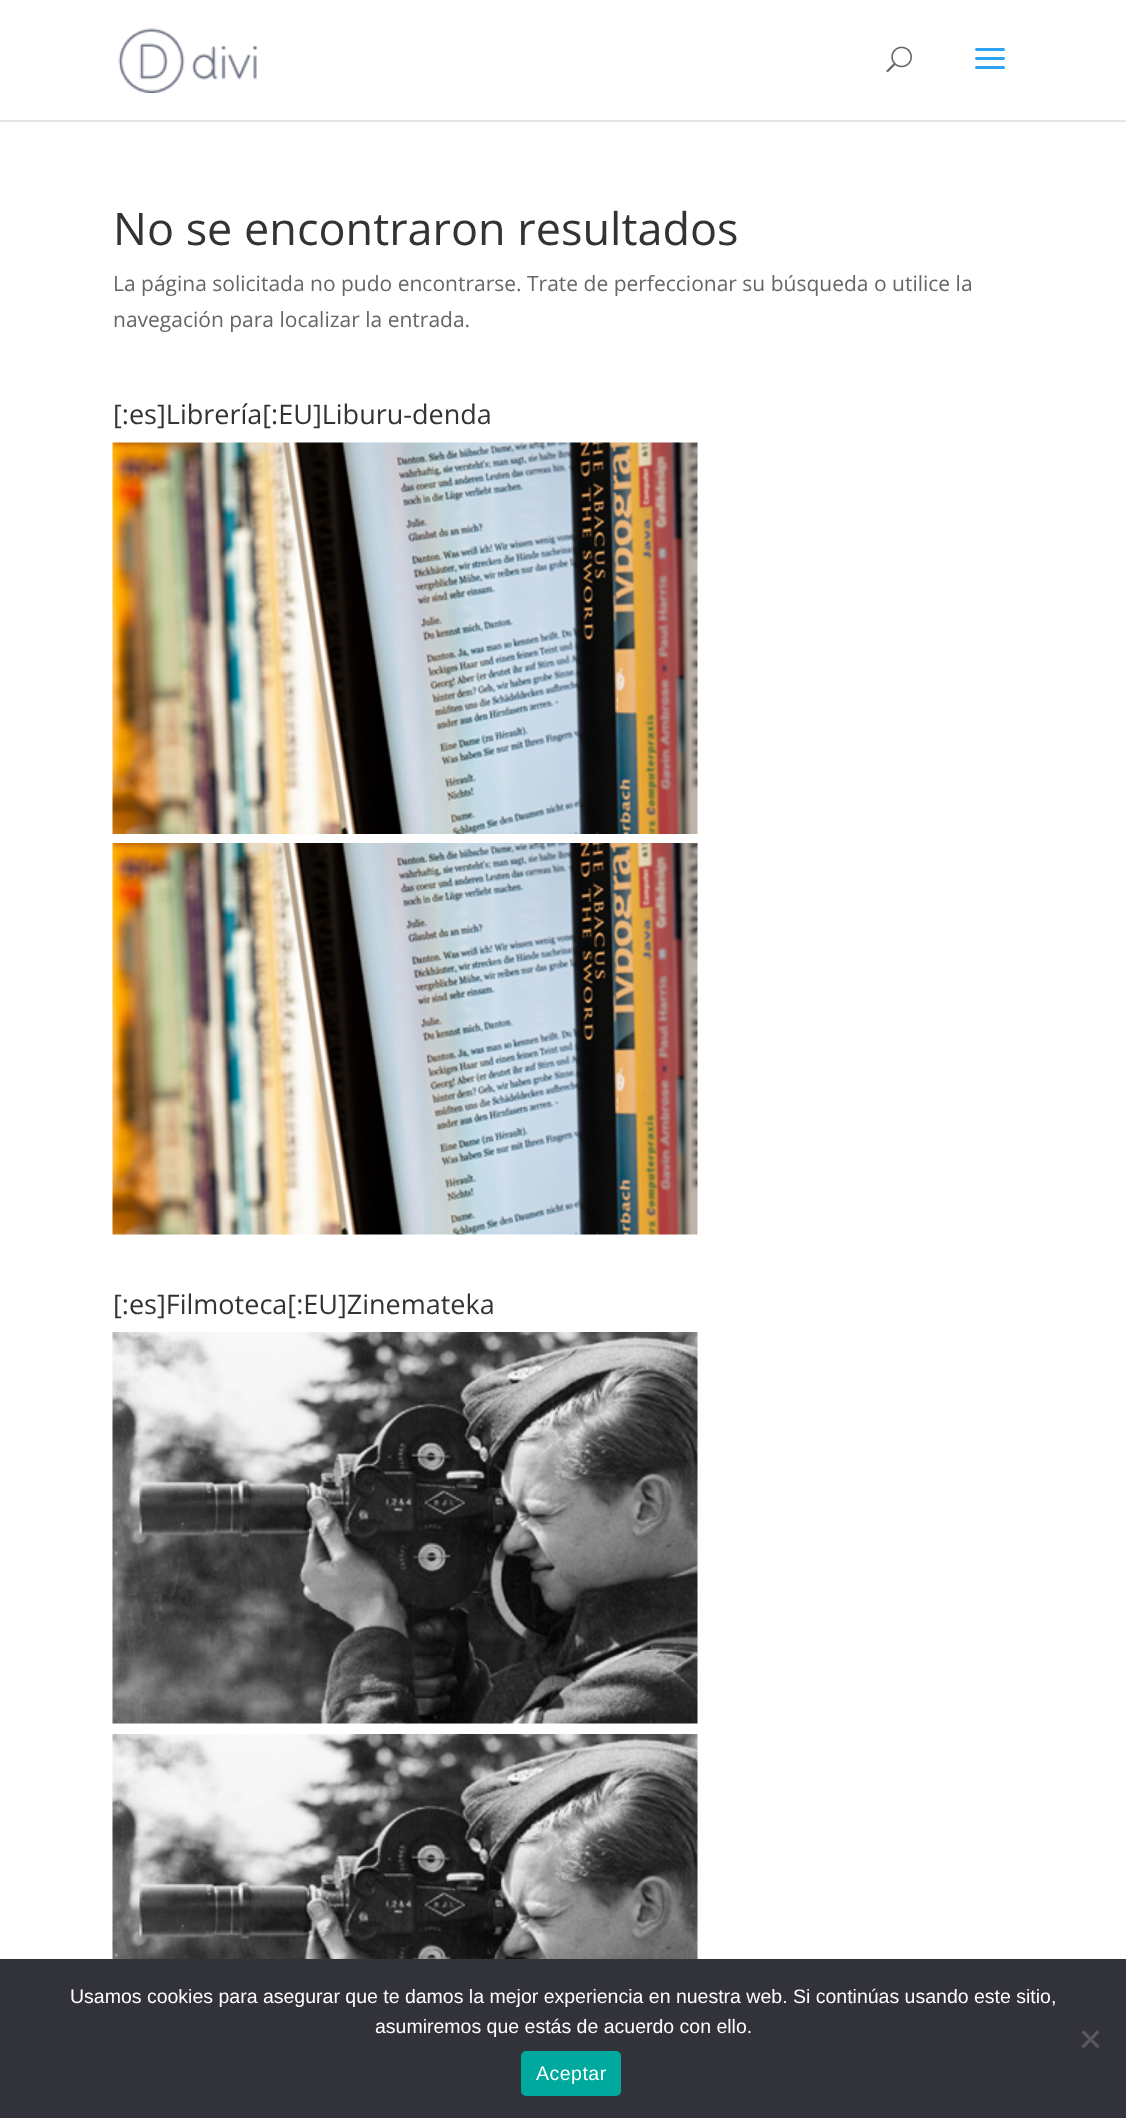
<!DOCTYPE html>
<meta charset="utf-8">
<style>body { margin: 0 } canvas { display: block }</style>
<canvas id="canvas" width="1126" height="2118"></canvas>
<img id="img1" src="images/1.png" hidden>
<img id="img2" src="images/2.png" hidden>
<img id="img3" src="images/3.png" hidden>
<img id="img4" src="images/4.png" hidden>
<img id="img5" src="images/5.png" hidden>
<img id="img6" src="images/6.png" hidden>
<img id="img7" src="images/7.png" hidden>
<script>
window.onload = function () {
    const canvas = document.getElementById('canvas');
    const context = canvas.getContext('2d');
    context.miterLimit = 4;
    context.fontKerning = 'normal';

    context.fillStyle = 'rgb(255, 255, 255)';
    context.fillRect(0, 0, 1126, 2118);
    context.fillStyle = 'rgb(230, 230, 230)';
    context.beginPath();
    context.moveTo(0, 120);
    context.lineTo(0, 122);
    context.lineTo(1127, 122);
    context.lineTo(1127, 2);
    context.lineTo(1126, 2);
    context.lineTo(1126, 120);
    context.closePath();
    context.fill();
    context.drawImage(document.getElementById('img1'), 118, 28, 140, 65);
    context.drawImage(document.getElementById('img2'), 886, 46, 26, 27);
    context.drawImage(document.getElementById('img3'), 975, 48, 30, 21);
    context.drawImage(document.getElementById('img4'), 112, 442, 586, 392);
    context.drawImage(document.getElementById('img5'), 112, 843, 586, 392);
    context.drawImage(document.getElementById('img6'), 112, 1332, 586, 392);
    context.drawImage(document.getElementById('img7'), 112, 1734, 586, 225);
    context.fillStyle = 'rgb(50, 50, 58)';
    context.fillRect(0, 1959, 1126, 159);
    context.fillStyle = 'rgb(89, 89, 93)';
    context.beginPath();
    context.moveTo(1097.5, 2030);
    context.lineTo(1099.5, 2032.5);
    context.lineTo(1083.5, 2048.5);
    context.lineTo(1081.5, 2046);
    context.closePath();
    context.fill();
    context.beginPath();
    context.moveTo(1081.5, 2032.5);
    context.lineTo(1083.5, 2030);
    context.lineTo(1099.5, 2046);
    context.lineTo(1097.5, 2048.5);
    context.closePath();
    context.fill();
    context.fillStyle = 'rgb(0, 169, 157)';
    context.beginPath();
    context.roundRect(521, 2051, 100, 45, 5);
    context.fill();
    context.font = '45px Open Sans';
    context.fillStyle = 'rgb(51, 51, 51)';
    context.fillText('No se encontraron resultados', 113, 245);
    context.font = '21px Open Sans';
    context.fillStyle = 'rgb(102, 102, 102)';
    context.fillText('La página solicitada no pudo encontrarse. Trate de perfeccionar su búsqueda o utilice la', 113, 291);
    context.fillText('navegación para localizar la entrada.', 113, 327);
    context.font = '27px Open Sans';
    context.fillStyle = 'rgb(51, 51, 51)';
    context.fillText('[:es]Librería[:EU]Liburu-denda', 113, 424);
    context.fillText('[:es]Filmoteca[:EU]Zinemateka', 113, 1314);
    context.font = '19.5px Liberation Sans';
    context.fillStyle = 'rgb(255, 255, 255)';
    context.fillText('Usamos cookies para asegurar que te damos la mejor experiencia en nuestra web. Si continúas usando este sitio,', 70, 2003);
    context.fillText('asumiremos que estás de acuerdo con ello.', 375, 2033);
    context.letterSpacing = '0.5px';
    context.fillText('Aceptar', 536, 2080);
};
</script>
